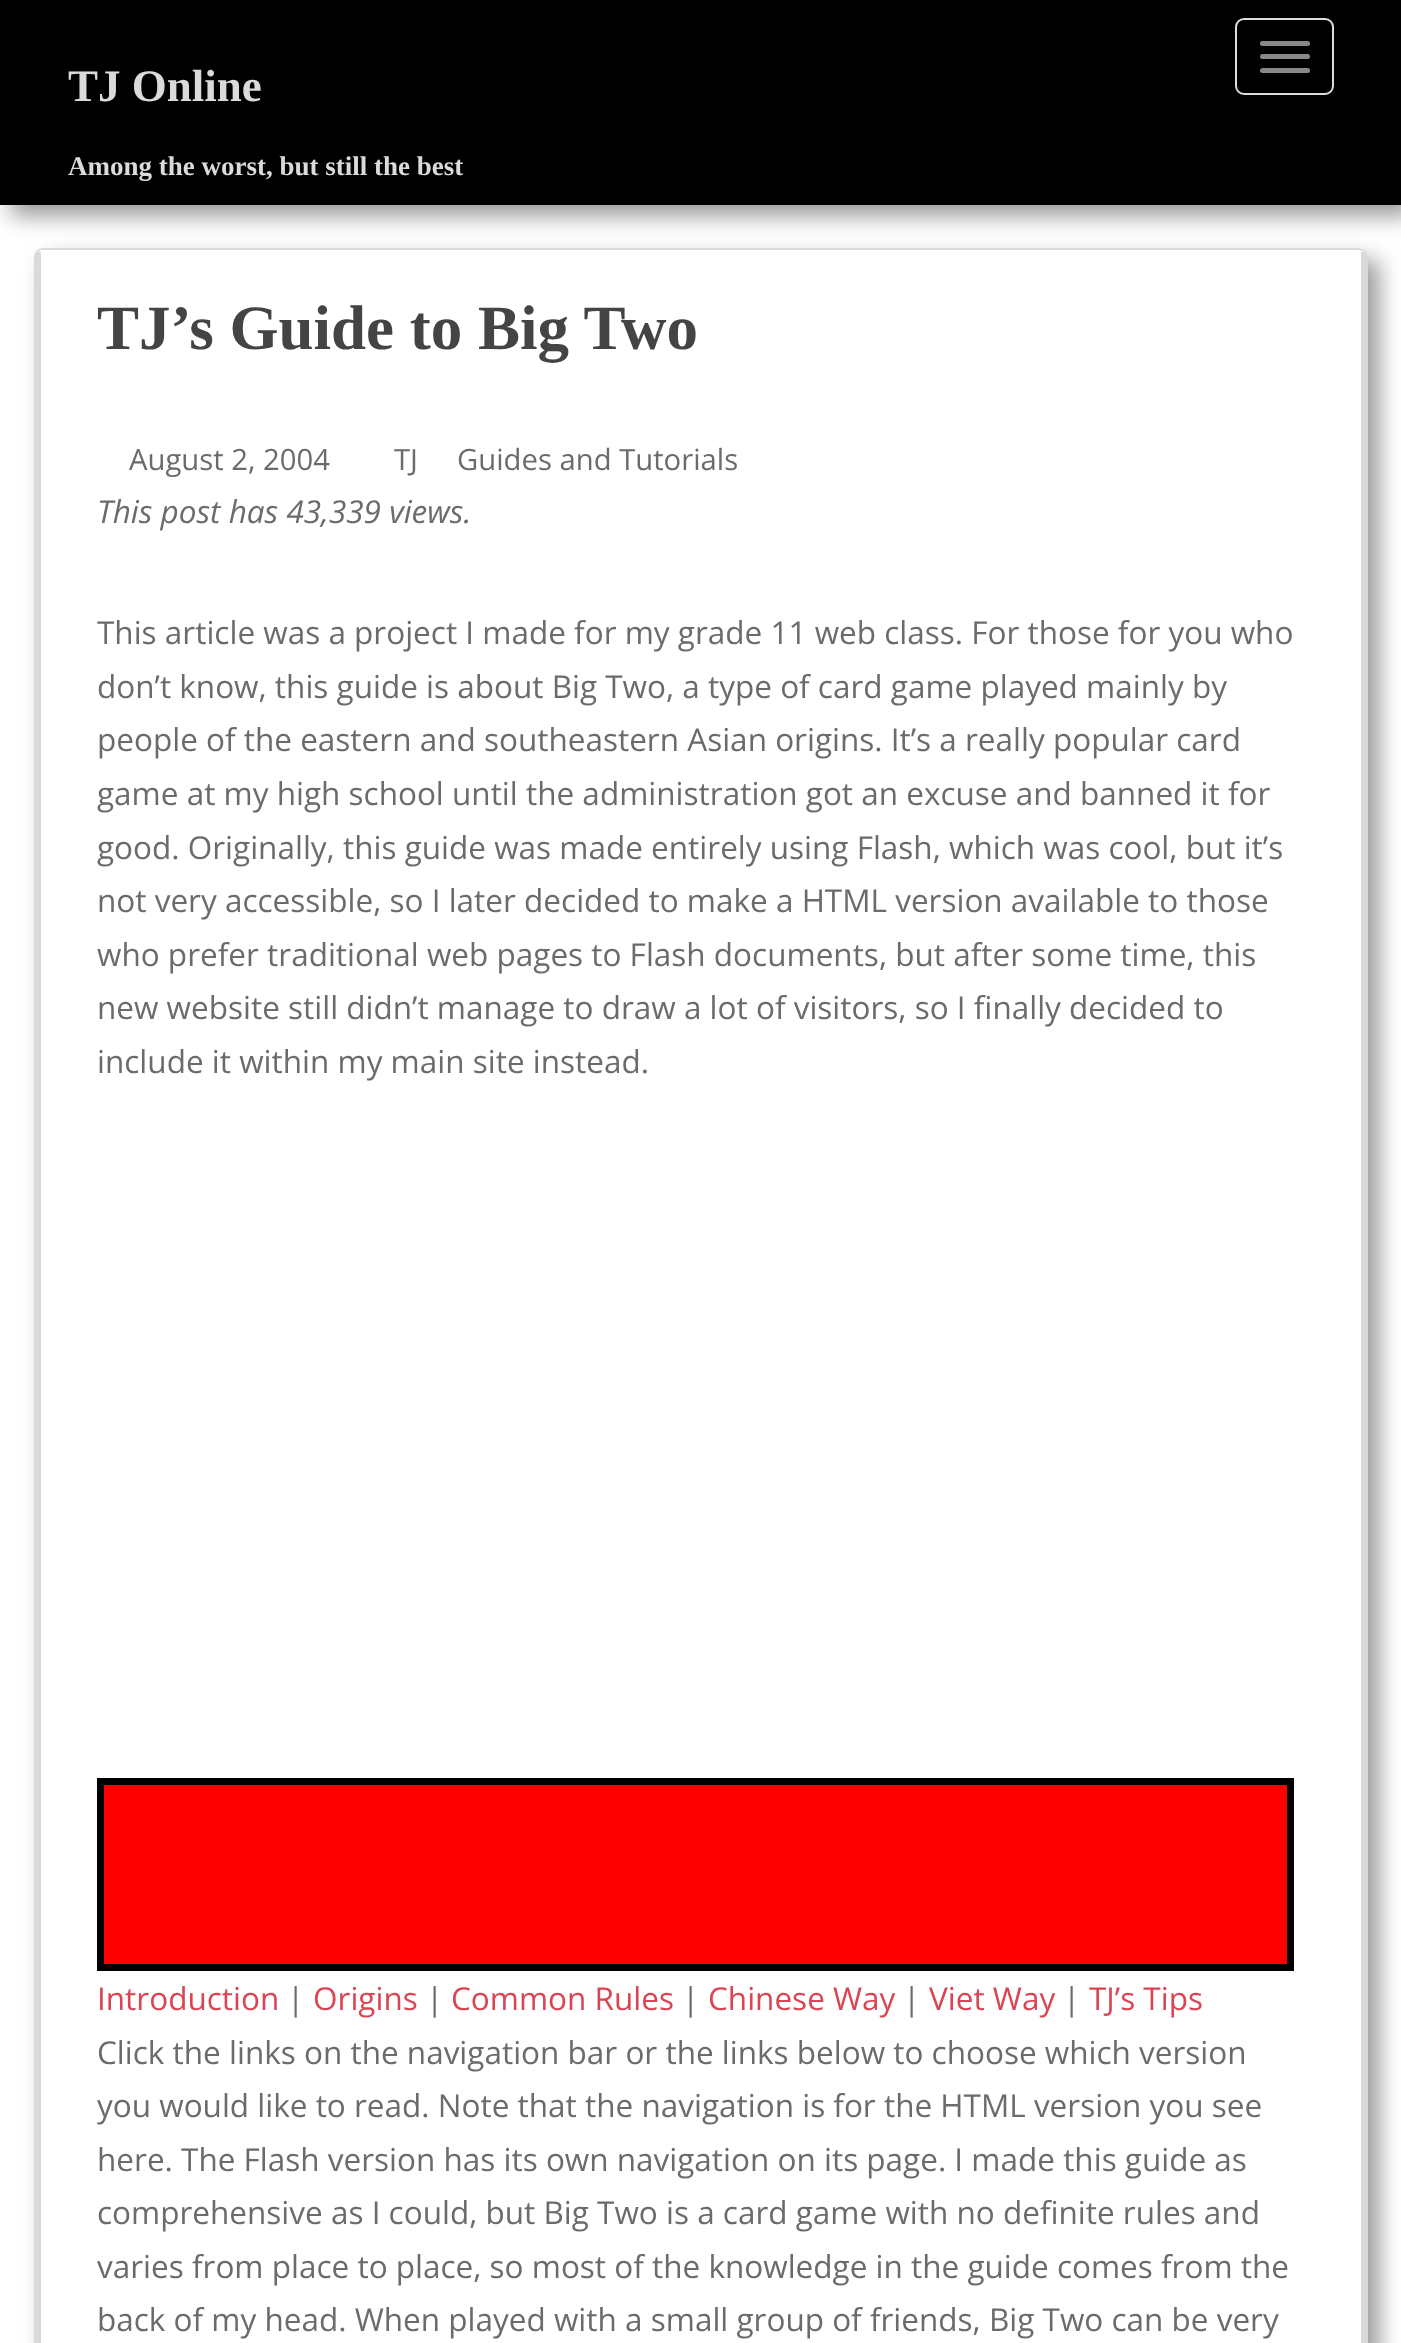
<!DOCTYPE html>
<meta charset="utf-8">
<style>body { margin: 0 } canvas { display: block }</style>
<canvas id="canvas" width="1401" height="2343"></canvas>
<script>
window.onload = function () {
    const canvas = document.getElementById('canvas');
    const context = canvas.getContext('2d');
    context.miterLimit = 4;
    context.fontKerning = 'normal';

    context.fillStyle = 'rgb(255, 255, 255)';
    context.fillRect(0, 0, 1401, 2343);
    context.save();
    context.beginPath();
    context.moveTo(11, 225);
    context.lineTo(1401, 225);
    context.lineTo(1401, 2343);
    context.lineTo(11, 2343);
    context.closePath();
    context.moveTo(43, 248);
    context.lineTo(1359, 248);
    context.bezierCurveTo(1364, 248, 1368, 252, 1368, 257);
    context.lineTo(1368, 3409);
    context.bezierCurveTo(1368, 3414, 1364, 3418, 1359, 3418);
    context.lineTo(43, 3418);
    context.bezierCurveTo(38, 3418, 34, 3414, 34, 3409);
    context.lineTo(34, 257);
    context.bezierCurveTo(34, 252, 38, 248, 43, 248);
    context.closePath();
    context.clip('evenodd');
    context.fillStyle = 'rgb(153, 153, 153)';
    context.filter = 'blur(11px)';
    context.beginPath();
    context.roundRect(45, 259, 1334, 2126, 9);
    context.fill();
    context.filter = 'none';
    context.restore();
    context.fillStyle = 'rgba(255, 255, 255, 0.8)';
    context.beginPath();
    context.roundRect(35, 249, 1332, 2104, 8);
    context.fill();
    context.strokeStyle = 'rgb(218, 218, 218)';
    context.lineWidth = 2;
    context.stroke();
    context.fillStyle = 'rgb(153, 153, 153)';
    context.filter = 'blur(11px)';
    context.beginPath();
    context.rect(11, 11, 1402, 205);
    context.fill();
    context.filter = 'none';
    context.fillStyle = 'rgb(0, 0, 0)';
    context.fillRect(0, 0, 1401, 205);
    context.beginPath();
    context.roundRect(1236, 19, 97, 75, 8);
    context.strokeStyle = 'rgb(221, 221, 221)';
    context.stroke();
    context.fillStyle = 'rgb(136, 136, 136)';
    context.beginPath();
    context.roundRect(1260, 41, 50, 5, 2.5);
    context.fill();
    context.beginPath();
    context.roundRect(1260, 54, 50, 5, 2.5);
    context.fill();
    context.beginPath();
    context.roundRect(1260, 68, 50, 5, 2.5);
    context.fill();
    context.fillStyle = 'rgb(218, 218, 218)';
    context.fillRect(1361, 252, 5, 2091);
    context.fillRect(36, 252, 5, 2091);
    context.fillStyle = 'rgb(255, 0, 0)';
    context.beginPath();
    context.rect(100.5, 1781.5, 1190, 186);
    context.fill();
    context.strokeStyle = 'rgb(0, 0, 0)';
    context.lineWidth = 7;
    context.stroke();
    context.font = 'bold 45px Liberation Serif';
    context.fillStyle = 'rgb(218, 218, 218)';
    context.fillText('TJ Online', 68, 101);
    context.font = 'bold 27px Liberation Serif';
    context.fillText('Among the worst, but still the best', 68, 175);
    context.font = 'bold 63px Liberation Serif';
    context.fillStyle = 'rgb(68, 68, 68)';
    context.fillText('TJ’s Guide to Big Two', 97, 349);
    context.font = '29.25px Open Sans';
    context.fillStyle = 'rgb(107, 107, 107)';
    context.fillText('August 2, 2004', 129, 470);
    context.fillText('TJ', 394, 470);
    context.fillText('Guides and Tutorials', 457, 470);
    context.font = 'italic 31.5px Open Sans';
    context.fillText('This post has 43,339 views.', 97, 523);
    context.font = '31.5px Open Sans';
    context.fillText('This article was a project I made for my grade 11 web class. For those for you who', 97, 644);
    context.fillText('don’t know, this guide is about Big Two, a type of card game played mainly by', 97, 698);
    context.fillText('people of the eastern and southeastern Asian origins. It’s a really popular card', 97, 751);
    context.fillText('game at my high school until the administration got an excuse and banned it for', 97, 805);
    context.fillText('good. Originally, this guide was made entirely using Flash, which was cool, but it’s', 97, 859);
    context.fillText('not very accessible, so I later decided to make a HTML version available to those', 97, 912);
    context.fillText('who prefer traditional web pages to Flash documents, but after some time, this', 97, 966);
    context.fillText('new website still didn’t manage to draw a lot of visitors, so I finally decided to', 97, 1019);
    context.fillText('include it within my main site instead.', 97, 1073);
    context.fillStyle = 'rgb(218, 68, 83)';
    context.fillText('Introduction', 97, 2010);
    context.fillStyle = 'rgb(107, 107, 107)';
    context.fillText('|', 287, 2010);
    context.fillStyle = 'rgb(218, 68, 83)';
    context.fillText('Origins', 313, 2010);
    context.fillStyle = 'rgb(107, 107, 107)';
    context.fillText('|', 426, 2010);
    context.fillStyle = 'rgb(218, 68, 83)';
    context.fillText('Common Rules', 451, 2010);
    context.fillStyle = 'rgb(107, 107, 107)';
    context.fillText('|', 682, 2010);
    context.fillStyle = 'rgb(218, 68, 83)';
    context.fillText('Chinese Way', 708, 2010);
    context.fillStyle = 'rgb(107, 107, 107)';
    context.fillText('|', 903, 2010);
    context.fillStyle = 'rgb(218, 68, 83)';
    context.fillText('Viet Way', 929, 2010);
    context.fillStyle = 'rgb(107, 107, 107)';
    context.fillText('|', 1063, 2010);
    context.fillStyle = 'rgb(218, 68, 83)';
    context.fillText('TJ’s Tips', 1089, 2010);
    context.fillStyle = 'rgb(107, 107, 107)';
    context.fillText('Click the links on the navigation bar or the links below to choose which version', 97, 2064);
    context.fillText('you would like to read. Note that the navigation is for the HTML version you see', 97, 2117);
    context.fillText('here. The Flash version has its own navigation on its page. I made this guide as', 97, 2171);
    context.fillText('comprehensive as I could, but Big Two is a card game with no definite rules and', 97, 2224);
    context.fillText('varies from place to place, so most of the knowledge in the guide comes from the', 97, 2278);
    context.fillText('back of my head. When played with a small group of friends, Big Two can be very', 97, 2331);
};
</script>
